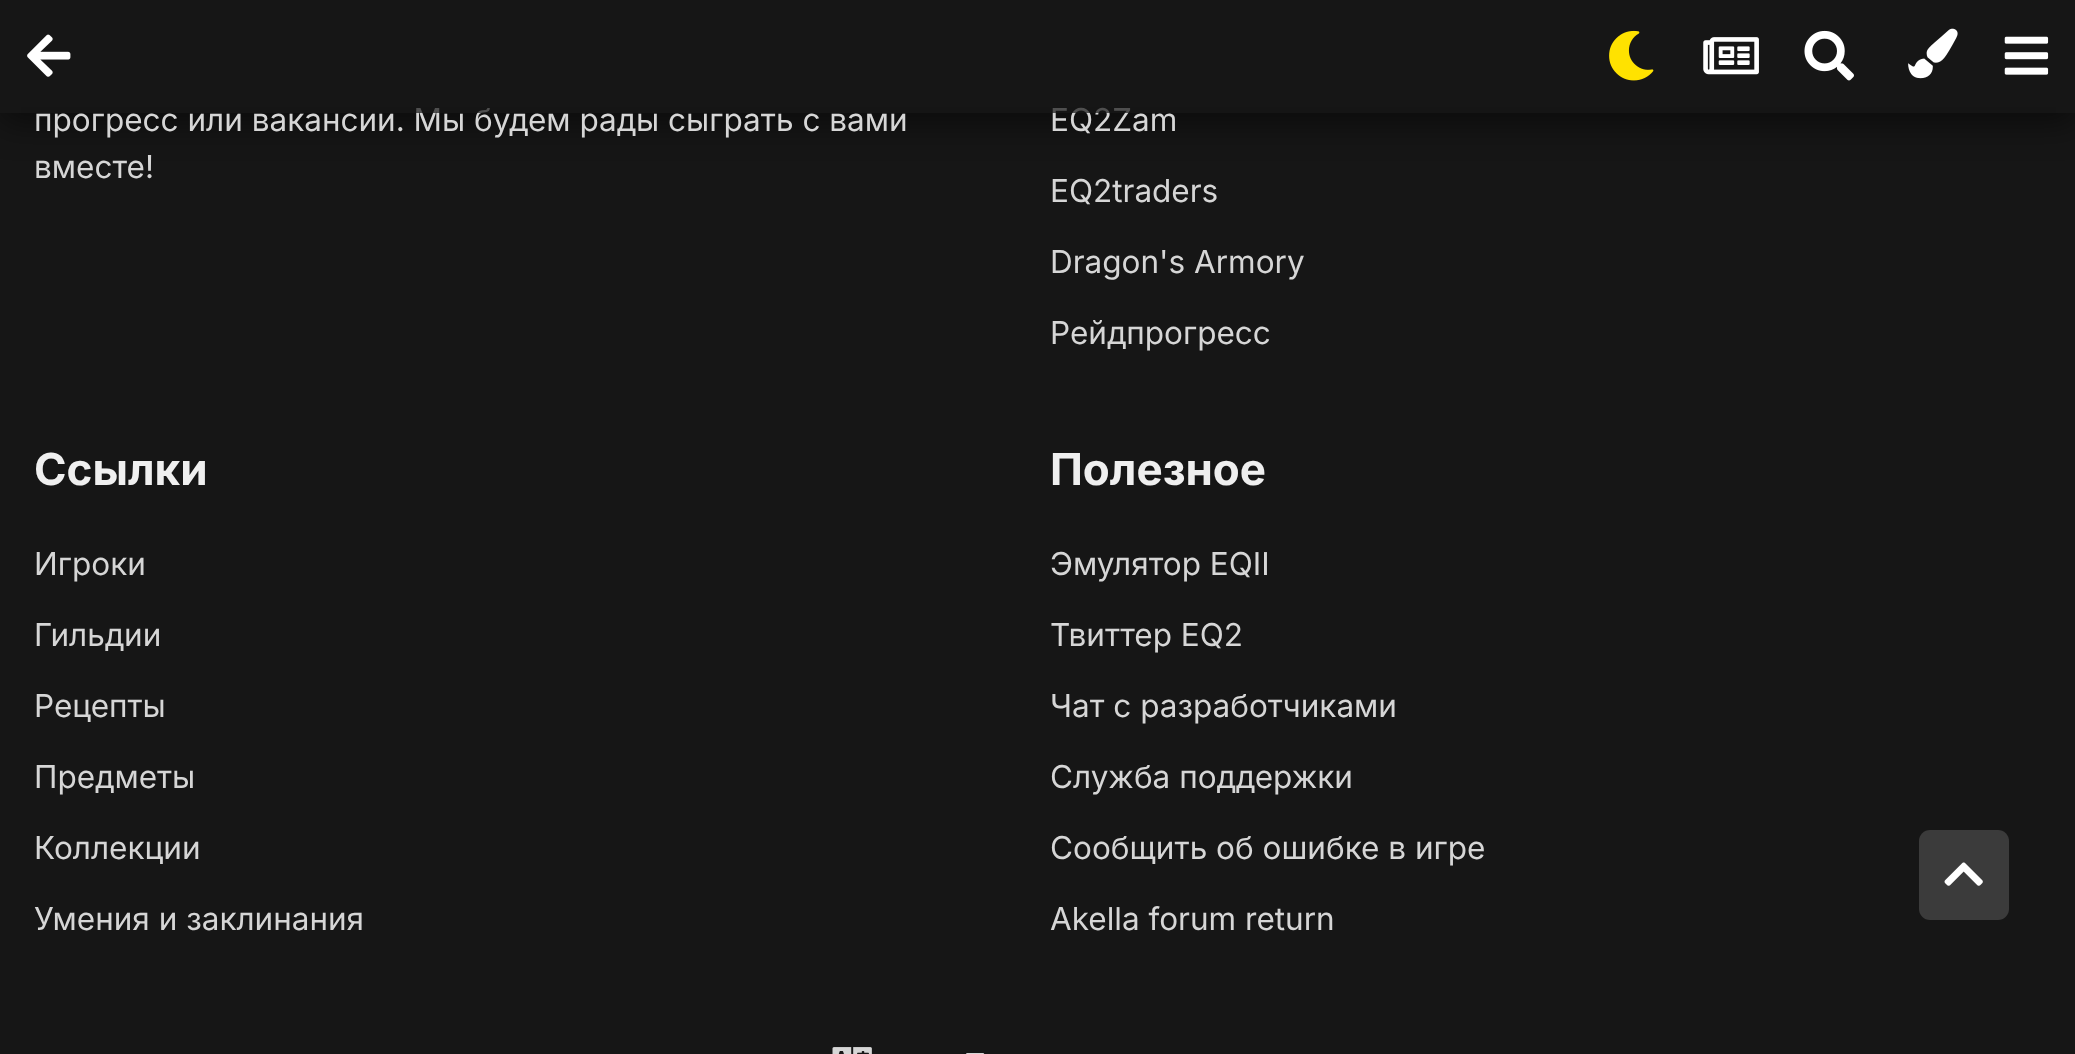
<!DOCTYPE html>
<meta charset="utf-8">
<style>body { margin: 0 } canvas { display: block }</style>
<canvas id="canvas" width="2075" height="1054"></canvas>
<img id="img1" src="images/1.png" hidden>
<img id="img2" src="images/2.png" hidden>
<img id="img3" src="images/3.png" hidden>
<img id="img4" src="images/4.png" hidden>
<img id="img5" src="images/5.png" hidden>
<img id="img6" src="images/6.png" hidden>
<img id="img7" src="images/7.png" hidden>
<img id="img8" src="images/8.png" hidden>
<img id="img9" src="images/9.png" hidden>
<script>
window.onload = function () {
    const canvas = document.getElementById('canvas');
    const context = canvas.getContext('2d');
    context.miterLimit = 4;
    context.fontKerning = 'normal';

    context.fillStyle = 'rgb(22, 22, 22)';
    context.fillRect(0, 0, 2075, 1054);
    context.save();
    context.beginPath();
    context.moveTo(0, 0);
    context.lineTo(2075, 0);
    context.lineTo(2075, 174);
    context.lineTo(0, 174);
    context.closePath();
    context.moveTo(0, 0);
    context.lineTo(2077, 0);
    context.lineTo(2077, 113);
    context.lineTo(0, 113);
    context.closePath();
    context.clip('evenodd');
    context.fillStyle = 'rgba(0, 0, 0, 0.53)';
    context.filter = 'blur(17px)';
    context.beginPath();
    context.rect(0, 9, 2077, 113);
    context.fill();
    context.filter = 'none';
    context.restore();
    context.drawImage(document.getElementById('img1'), 27, 34, 44, 43);
    context.drawImage(document.getElementById('img2'), 1609, 30, 45, 51);
    context.drawImage(document.getElementById('img3'), 1703, 37, 56, 38);
    context.drawImage(document.getElementById('img4'), 1804, 30, 50, 51);
    context.drawImage(document.getElementById('img5'), 1908, 28, 50, 51);
    context.drawImage(document.getElementById('img6'), 2004, 36, 45, 39);
    context.drawImage(document.getElementById('img7'), 832, 1047, 40, 7);
    context.drawImage(document.getElementById('img8'), 966, 1053, 19, 1);
    context.fillStyle = 'rgb(59, 59, 59)';
    context.beginPath();
    context.roundRect(1919, 830, 90, 90, 11);
    context.fill();
    context.drawImage(document.getElementById('img9'), 1944, 862, 39, 24);
    context.font = '31.5px Inter';
    context.fillStyle = 'rgb(214, 214, 214)';
    context.fillText('прогресс или вакансии. Мы будем рады сыграть с вами', 34, 131);
    context.fillText('вместе!', 34, 178);
    context.fillText('EQ2Zam', 1050, 131);
    context.fillStyle = 'rgba(22, 22, 22, 0.7)';
    context.fillRect(21, 107, 2035, 6);
    context.fillStyle = 'rgb(214, 214, 214)';
    context.fillText('EQ2traders', 1050, 202);
    context.fillText('Dragon\'s Armory', 1050, 273);
    context.fillText('Рейдпрогресс', 1050, 344);
    context.font = 'bold 44px Inter';
    context.fillStyle = 'rgb(239, 239, 239)';
    context.fillText('Ссылки', 34, 485);
    context.font = '31.5px Inter';
    context.fillStyle = 'rgb(214, 214, 214)';
    context.fillText('Игроки', 34, 575);
    context.fillText('Гильдии', 34, 646);
    context.fillText('Рецепты', 34, 717);
    context.fillText('Предметы', 34, 788);
    context.fillText('Коллекции', 34, 859);
    context.fillText('Умения и заклинания', 34, 930);
    context.font = 'bold 44px Inter';
    context.fillStyle = 'rgb(239, 239, 239)';
    context.fillText('Полезное', 1050, 485);
    context.font = '31.5px Inter';
    context.fillStyle = 'rgb(214, 214, 214)';
    context.fillText('Эмулятор EQII', 1050, 575);
    context.fillText('Твиттер EQ2', 1050, 646);
    context.fillText('Чат с разработчиками', 1050, 717);
    context.fillText('Служба поддержки', 1050, 788);
    context.fillText('Сообщить об ошибке в игре', 1050, 859);
    context.fillText('Akella forum return', 1050, 930);
};
</script>
